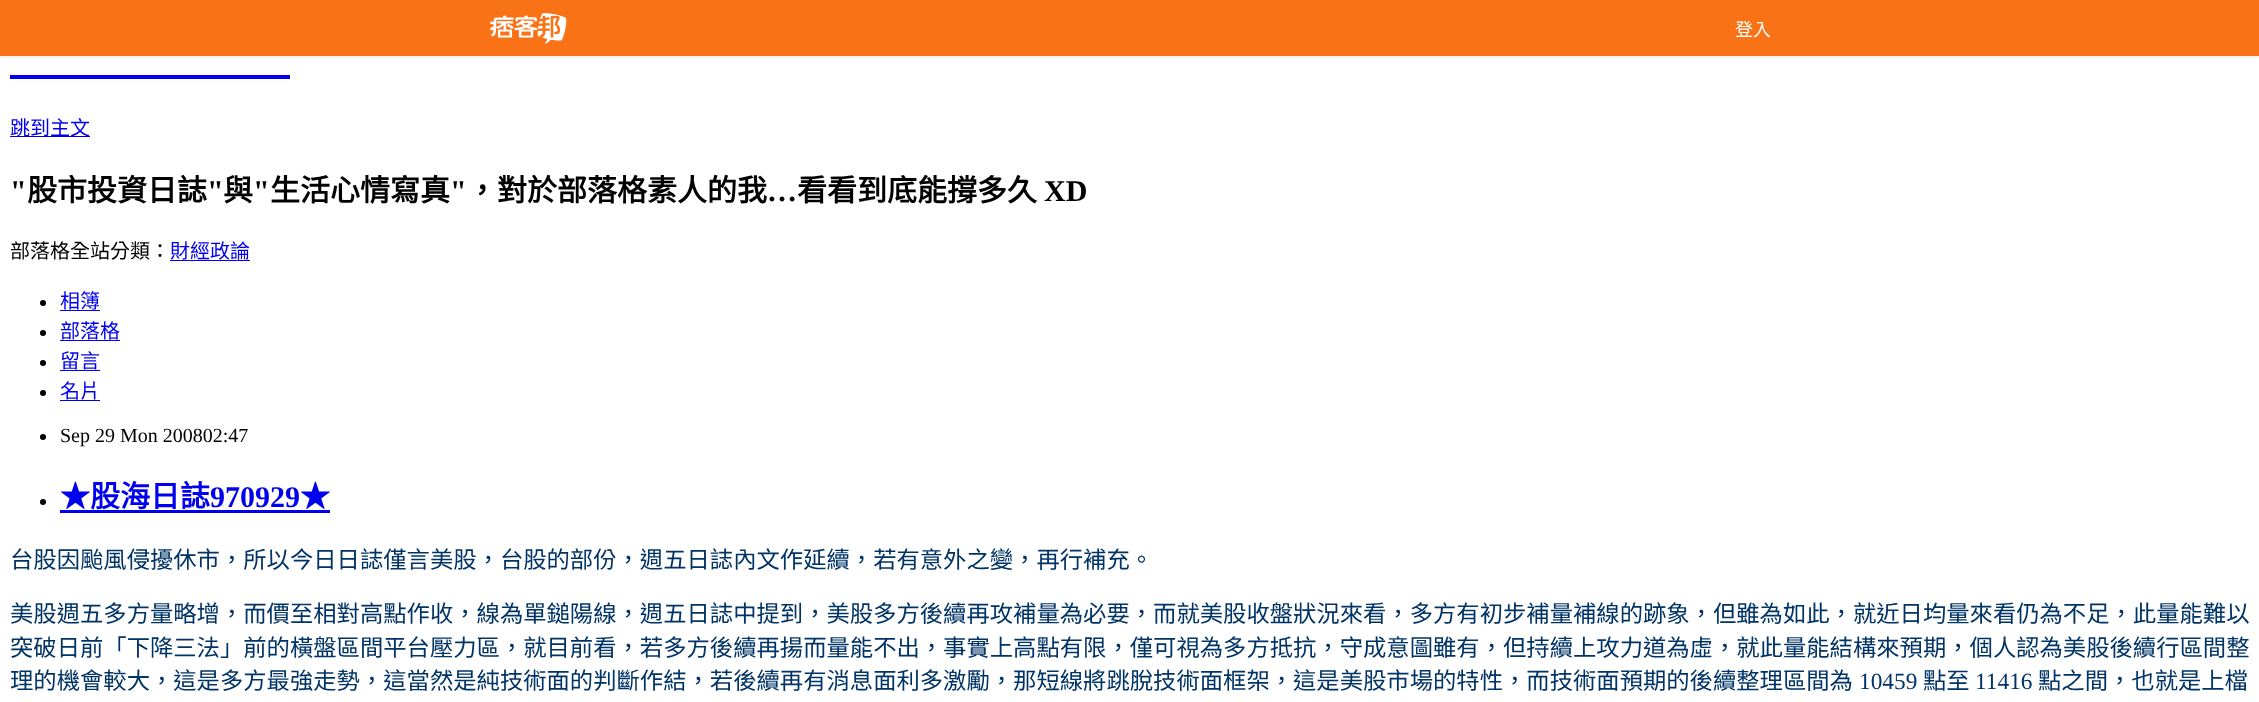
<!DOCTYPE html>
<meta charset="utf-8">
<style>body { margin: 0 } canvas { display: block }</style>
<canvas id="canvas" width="2259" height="702"></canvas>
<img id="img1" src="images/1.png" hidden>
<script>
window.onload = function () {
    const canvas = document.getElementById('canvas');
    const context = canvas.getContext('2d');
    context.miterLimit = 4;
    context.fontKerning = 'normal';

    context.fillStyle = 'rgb(255, 255, 255)';
    context.fillRect(0, 0, 2259, 702);
    context.fillStyle = 'rgba(0, 0, 0, 0.05)';
    context.filter = 'blur(1px)';
    context.beginPath();
    context.rect(0, 1, 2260, 57);
    context.fill();
    context.filter = 'none';
    context.fillStyle = 'rgb(249, 115, 22)';
    context.fillRect(0, 0, 2259, 56);
    context.drawImage(document.getElementById('img1'), 490, 13, 77, 31);
    context.fillStyle = 'rgb(0, 0, 238)';
    context.fillRect(10, 75, 280, 4);
    context.fillRect(10, 136, 80, 1);
    context.fillRect(170, 260, 80, 1);
    context.fillStyle = 'rgb(0, 0, 0)';
    context.beginPath();
    context.arc(43, 303, 3, 0, 2 * Math.PI);
    context.fill();
    context.fillStyle = 'rgb(0, 0, 238)';
    context.fillRect(60, 310, 40, 1);
    context.fillStyle = 'rgb(0, 0, 0)';
    context.beginPath();
    context.arc(43, 333, 3, 0, 2 * Math.PI);
    context.fill();
    context.fillStyle = 'rgb(0, 0, 238)';
    context.fillRect(60, 340, 60, 1);
    context.fillStyle = 'rgb(0, 0, 0)';
    context.beginPath();
    context.arc(43, 363, 3, 0, 2 * Math.PI);
    context.fill();
    context.fillStyle = 'rgb(0, 0, 238)';
    context.fillRect(60, 370, 40, 1);
    context.fillStyle = 'rgb(0, 0, 0)';
    context.beginPath();
    context.arc(43, 393, 3, 0, 2 * Math.PI);
    context.fill();
    context.fillStyle = 'rgb(0, 0, 238)';
    context.fillRect(60, 400, 40, 1);
    context.fillStyle = 'rgb(0, 0, 0)';
    context.beginPath();
    context.arc(43, 437, 3, 0, 2 * Math.PI);
    context.fill();
    context.beginPath();
    context.arc(43, 502, 3, 0, 2 * Math.PI);
    context.fill();
    context.fillStyle = 'rgb(0, 0, 238)';
    context.fillRect(60, 510, 270, 3);
    context.font = '18px Noto Sans CJK TC';
    context.fillStyle = 'rgb(255, 255, 255)';
    context.fillText('登入', 1735, 36);
    context.font = '20px Noto Sans CJK TC';
    context.fillStyle = 'rgb(0, 0, 238)';
    context.fillText('跳到主文', 10, 135);
    context.font = 'bold 30px Liberation Serif';
    context.fillStyle = 'rgb(0, 0, 0)';
    context.fillText('"', 10, 201);
    context.font = 'bold 30px Noto Sans CJK TC';
    context.fillText('股市投資日誌', 27, 201);
    context.font = 'bold 30px Liberation Serif';
    context.fillText('"', 207, 201);
    context.font = 'bold 30px Noto Sans CJK TC';
    context.fillText('與', 223, 201);
    context.font = 'bold 30px Liberation Serif';
    context.fillText('"', 253, 201);
    context.font = 'bold 30px Noto Sans CJK TC';
    context.fillText('生活心情寫真', 270, 201);
    context.font = 'bold 30px Liberation Serif';
    context.fillText('"', 450, 201);
    context.font = 'bold 30px Noto Sans CJK TC';
    context.fillText('，對於部落格素人的我', 467, 201);
    context.font = 'bold 30px Liberation Serif';
    context.fillText('…', 767, 201);
    context.font = 'bold 30px Noto Sans CJK TC';
    context.fillText('看看到底能撐多久', 797, 201);
    context.font = 'bold 30px Liberation Serif';
    context.fillText('XD', 1044, 201);
    context.font = '20px Noto Sans CJK TC';
    context.fillText('部落格全站分類：', 10, 258);
    context.fillStyle = 'rgb(0, 0, 238)';
    context.fillText('財經政論', 170, 258);
    context.fillText('相簿', 60, 308);
    context.fillText('部落格', 60, 338);
    context.fillText('留言', 60, 368);
    context.fillText('名片', 60, 398);
    context.font = '20px Liberation Serif';
    context.fillStyle = 'rgb(0, 0, 0)';
    context.fillText('Sep 29 Mon 200802:47', 60, 442);
    context.font = 'bold 30px Noto Sans CJK TC';
    context.fillStyle = 'rgb(0, 0, 238)';
    context.fillText('★股海日誌', 60, 507);
    context.font = 'bold 30px Liberation Serif';
    context.fillText('970929', 210, 507);
    context.font = 'bold 30px Noto Sans CJK TC';
    context.fillText('★', 300, 507);
    context.font = '23.33px Noto Sans CJK TC';
    context.fillStyle = 'rgb(0, 51, 102)';
    context.fillText('台股因颱風侵擾休市，所以今日日誌僅言美股，台股的部份，週五日誌內文作延續，若有意外之變，再行補充。', 10, 568);
    context.fillText('美股週五多方量略增，而價至相對高點作收，線為單鎚陽線，週五日誌中提到，美股多方後續再攻補量為必要，而就美股收盤狀況來看，多方有初步補量補線的跡象，但雖為如此，就近日均量來看仍為不足，此量能難以', 10, 622);
    context.fillText('突破日前「下降三法」前的橫盤區間平台壓力區，就目前看，若多方後續再揚而量能不出，事實上高點有限，僅可視為多方抵抗，守成意圖雖有，但持續上攻力道為虛，就此量能結構來預期，個人認為美股後續行區間整', 10, 656);
    context.fillText('理的機會較大，這是多方最強走勢，這當然是純技術面的判斷作結，若後續再有消息面利多激勵，那短線將跳脫技術面框架，這是美股市場的特性，而技術面預期的後續整理區間為', 10, 689);
    context.font = '23.33px Liberation Serif';
    context.fillText('10459', 1859, 689);
    context.font = '23.33px Noto Sans CJK TC';
    context.fillText('點至', 1923, 689);
    context.font = '23.33px Liberation Serif';
    context.fillText('11416', 1975, 689);
    context.font = '23.33px Noto Sans CJK TC';
    context.fillText('點之間，也就是上檔', 2038, 689);
};
</script>
